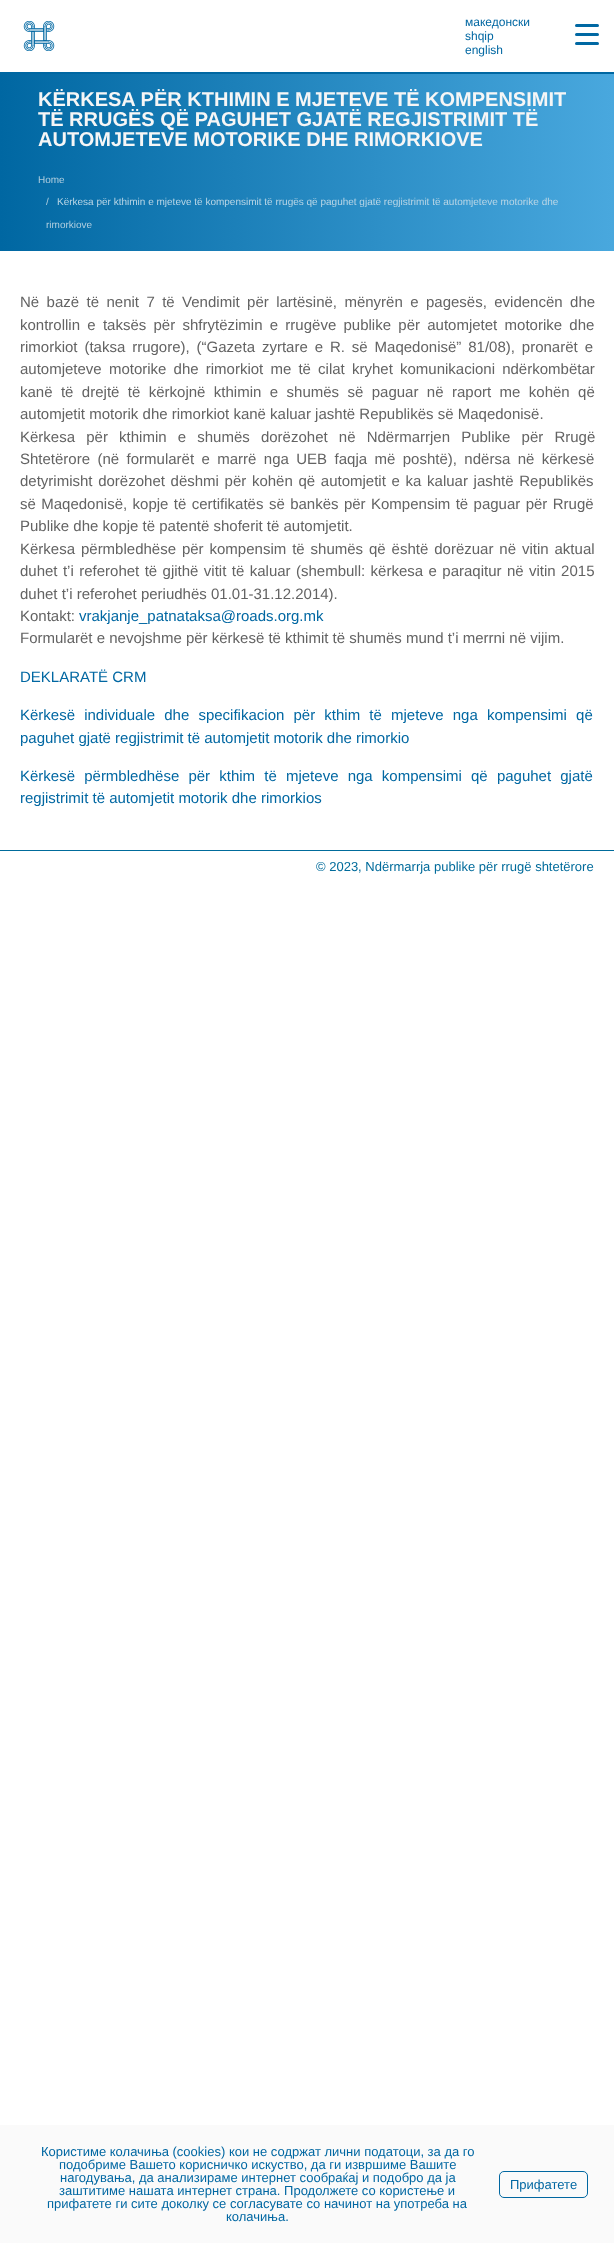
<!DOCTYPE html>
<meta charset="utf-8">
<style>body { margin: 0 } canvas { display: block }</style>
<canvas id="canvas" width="614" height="2243"></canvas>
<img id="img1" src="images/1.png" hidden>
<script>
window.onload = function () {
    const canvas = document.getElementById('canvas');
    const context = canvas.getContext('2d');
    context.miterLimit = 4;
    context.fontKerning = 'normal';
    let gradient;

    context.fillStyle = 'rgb(255, 255, 255)';
    context.fillRect(0, 0, 614, 2243);
    context.fillStyle = 'rgb(0, 103, 162)';
    context.fillRect(0, 72, 614, 2);
    context.drawImage(document.getElementById('img1'), 23, 21, 32, 30);
    context.fillStyle = 'rgb(0, 104, 163)';
    context.beginPath();
    context.roundRect(575, 33, 24, 3, 1.5);
    context.fill();
    context.beginPath();
    context.roundRect(575, 24, 24, 3, 1.5);
    context.fill();
    context.beginPath();
    context.roundRect(575, 42, 24, 3, 1.5);
    context.fill();
    gradient = context.createLinearGradient(0, 163, 614, 162);
    gradient.addColorStop(0, 'rgb(0, 103, 162)');
    gradient.addColorStop(1, 'rgb(73, 168, 222)');
    context.fillStyle = gradient;
    context.fillRect(0, 74, 614, 177);
    context.fillStyle = 'rgb(0, 107, 155)';
    context.fillRect(0, 850, 614, 1);
    context.fillStyle = 'rgb(250, 250, 250)';
    context.fillRect(0, 2125, 614, 118);
    context.beginPath();
    context.roundRect(499.5, 2171.5, 88, 26, 4.5);
    context.strokeStyle = 'rgb(0, 103, 161)';
    context.stroke();
    context.font = '12px Liberation Sans';
    context.fillStyle = 'rgb(0, 103, 162)';
    context.fillText('македонски', 465, 26);
    context.fillText('shqip', 465, 40);
    context.fillText('english', 465, 54);
    context.font = 'bold 20px Liberation Sans';
    context.fillStyle = 'rgb(246, 246, 246)';
    context.fillText('KËRKESA PËR KTHIMIN E MJETEVE TË KOMPENSIMIT', 38, 106);
    context.fillText('TË RRUGËS QË PAGUHET GJATË REGJISTRIMIT TË', 38, 126);
    context.fillText('AUTOMJETEVE MOTORIKE DHE RIMORKIOVE', 38, 146);
    context.font = '10px Liberation Sans';
    context.fillStyle = 'rgb(176, 206, 223)';
    context.fillText('Home', 38, 183);
    context.fillText('/', 46, 205);
    context.fillStyle = 'rgb(185, 214, 230)';
    context.fillText('Kërkesa për kthimin e mjeteve të kompensimit të rrugës që paguhet gjatë regjistrimit të automjeteve motorike dhe', 57, 205);
    context.fillStyle = 'rgb(176, 206, 223)';
    context.fillText('rimorkiove', 46, 228);
    context.wordSpacing = '3.25px';
    context.font = '15px Liberation Sans';
    context.fillStyle = 'rgb(99, 99, 99)';
    context.fillText('Në bazë të nenit 7 të Vendimit për lartësinë, mënyrën e pagesës, evidencën dhe', 20, 307);
    context.wordSpacing = '3.1px';
    context.fillText('kontrollin e taksës për shfrytëzimin e rrugëve publike për automjetet motorike dhe', 20, 330);
    context.wordSpacing = '2.75px';
    context.fillText('rimorkiot (taksa rrugore), (“Gazeta zyrtare e R. së Maqedonisë” 81/08), pronarët e', 20, 352);
    context.wordSpacing = '3px';
    context.fillText('automjeteve motorike dhe rimorkiot me të cilat kryhet komunikacioni ndërkombëtar', 20, 374);
    context.wordSpacing = '4.25px';
    context.fillText('kanë të drejtë të kërkojnë kthimin e shumës së paguar në raport me kohën që', 20, 397);
    context.wordSpacing = '0px';
    context.fillText('automjetit motorik dhe rimorkiot kanë kaluar jashtë Republikës së Maqedonisë.', 20, 419);
    context.wordSpacing = '7px';
    context.fillText('Kërkesa për kthimin e shumës dorëzohet në Ndërmarrjen Publike për Rrugë', 20, 442);
    context.wordSpacing = '3.25px';
    context.fillText('Shtetërore (në formularët e marrë nga UEB faqja më poshtë), ndërsa në kërkesë', 20, 464);
    context.wordSpacing = '1.5px';
    context.fillText('detyrimisht dorëzohet dëshmi për kohën që automjetit e ka kaluar jashtë Republikës', 20, 486);
    context.wordSpacing = '1.25px';
    context.fillText('së Maqedonisë, kopje të certifikatës së bankës për Kompensim të paguar për Rrugë', 20, 509);
    context.wordSpacing = '0px';
    context.fillText('Publike dhe kopje të patentë shoferit të automjetit.', 20, 531);
    context.wordSpacing = '1.75px';
    context.fillText('Kërkesa përmbledhëse për kompensim të shumës që është dorëzuar në vitin aktual', 20, 554);
    context.wordSpacing = '1.25px';
    context.fillText('duhet t’i referohet të gjithë vitit të kaluar (shembull: kërkesa e paraqitur në vitin 2015', 20, 576);
    context.wordSpacing = '0px';
    context.fillText('duhet t’i referohet periudhës 01.01-31.12.2014).', 20, 599);
    context.fillText('Kontakt:', 20, 621);
    context.fillStyle = 'rgb(0, 103, 162)';
    context.fillText('vrakjanje_patnataksa@roads.org.mk', 79, 621);
    context.fillStyle = 'rgb(99, 99, 99)';
    context.fillText('Formularët e nevojshme për kërkesë të kthimit të shumës mund t’i merrni në vijim.', 20, 643);
    context.fillStyle = 'rgb(0, 103, 162)';
    context.fillText('DEKLARATË CRM', 20, 682);
    context.wordSpacing = '5px';
    context.fillText('Kërkesë individuale dhe specifikacion për kthim të mjeteve nga kompensimi që', 20, 720);
    context.wordSpacing = '0px';
    context.fillText('paguhet gjatë regjistrimit të automjetit motorik dhe rimorkio', 20, 743);
    context.wordSpacing = '5px';
    context.fillText('Kërkesë përmbledhëse për kthim të mjeteve nga kompensimi që paguhet gjatë', 20, 781);
    context.wordSpacing = '0px';
    context.fillText('regjistrimit të automjetit motorik dhe rimorkios', 20, 803);
    context.font = '13px Liberation Sans';
    context.fillStyle = 'rgb(0, 107, 155)';
    context.fillText('© 2023, Ndërmarrja publike për rrugë shtetërore', 316, 871);
    context.fillStyle = 'rgb(0, 103, 162)';
    context.fillText('Користиме колачиња (cookies) кои не содржат лични податоци, за да го', 41, 2156);
    context.fillText('подобриме Вашето корисничко искуство, да ги извршиме Вашите', 59, 2169);
    context.fillText('нагодувања, да анализираме интернет сообраќај и подобро да ја', 60, 2182);
    context.fillText('заштитиме нашата интернет страна. Продолжете со користење и', 59, 2195);
    context.fillText('прифатете ги сите доколку се согласувате со начинот на употреба на', 47, 2208);
    context.fillText('колачиња.', 226, 2221);
    context.fillText('Прифатете', 510, 2189);
};
</script>
